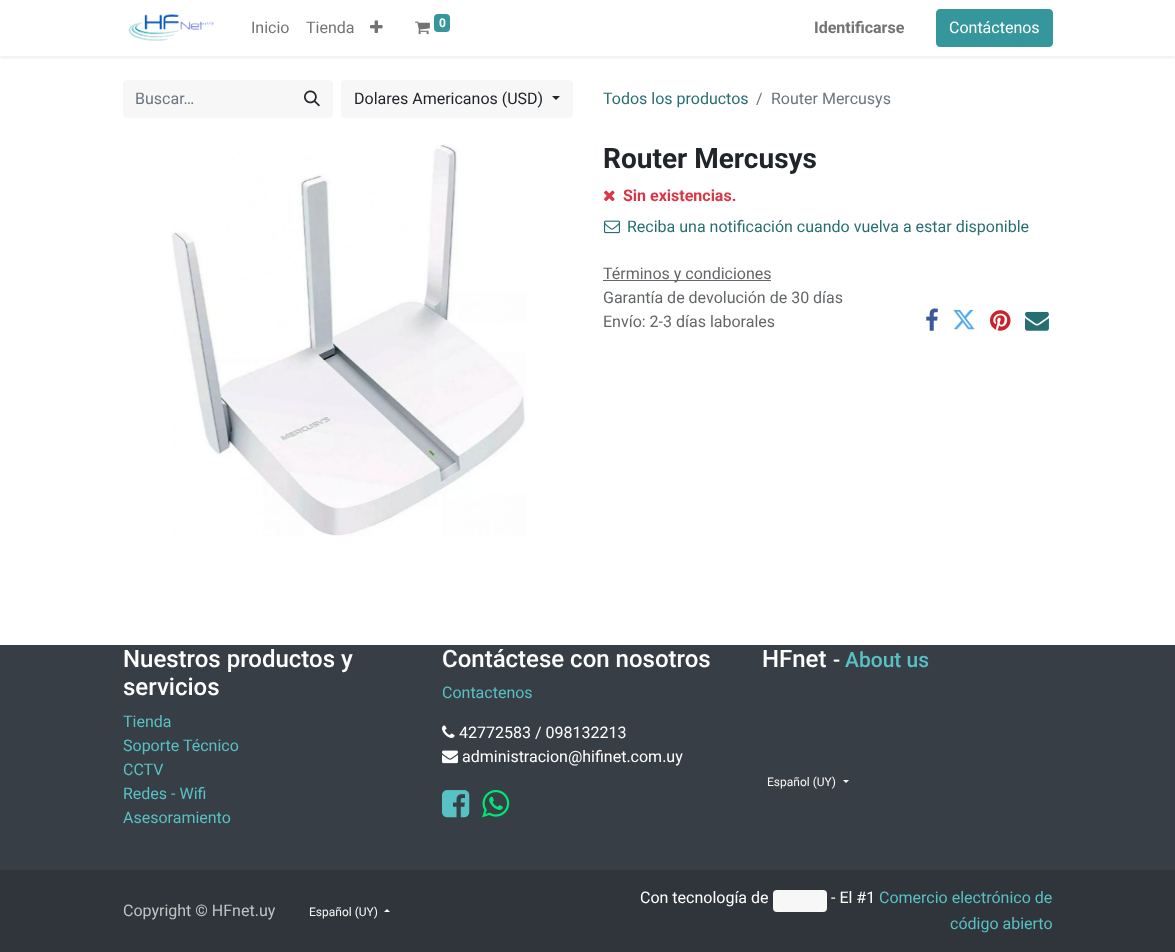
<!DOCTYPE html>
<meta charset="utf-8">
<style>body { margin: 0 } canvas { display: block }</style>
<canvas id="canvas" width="1175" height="952"></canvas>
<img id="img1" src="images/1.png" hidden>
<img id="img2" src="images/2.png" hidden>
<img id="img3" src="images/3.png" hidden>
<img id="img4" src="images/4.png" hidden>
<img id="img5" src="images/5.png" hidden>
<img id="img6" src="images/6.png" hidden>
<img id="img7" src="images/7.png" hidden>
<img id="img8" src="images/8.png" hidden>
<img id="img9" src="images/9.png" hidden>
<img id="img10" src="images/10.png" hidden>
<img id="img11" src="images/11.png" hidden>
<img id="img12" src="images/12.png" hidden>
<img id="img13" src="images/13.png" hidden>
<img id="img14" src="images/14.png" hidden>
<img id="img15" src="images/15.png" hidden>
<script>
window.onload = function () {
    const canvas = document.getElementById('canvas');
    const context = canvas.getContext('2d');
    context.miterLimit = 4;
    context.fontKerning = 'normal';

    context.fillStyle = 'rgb(255, 255, 255)';
    context.fillRect(0, 0, 1175, 952);
    context.save();
    context.beginPath();
    context.rect(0, 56, 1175, 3);
    context.clip();
    context.fillStyle = 'rgba(0, 0, 0, 0.07)';
    context.filter = 'blur(2px)';
    context.beginPath();
    context.rect(0, 2, 1175, 56);
    context.fill();
    context.filter = 'none';
    context.restore();
    context.drawImage(document.getElementById('img1'), 128, 14, 86, 27);
    context.drawImage(document.getElementById('img2'), 370, 20, 13, 13);
    context.drawImage(document.getElementById('img3'), 415, 21, 15, 14);
    context.fillStyle = 'rgb(53, 151, 156)';
    context.beginPath();
    context.roundRect(434, 14, 16, 18, 4);
    context.fill();
    context.beginPath();
    context.roundRect(936.5, 9.5, 116, 37, 3.5);
    context.fill();
    context.strokeStyle = 'rgb(53, 151, 156)';
    context.stroke();
    context.fillStyle = 'rgb(247, 247, 247)';
    context.beginPath();
    context.roundRect(123, 80, 169, 38, [4, 0, 0, 4]);
    context.fill();
    context.beginPath();
    context.roundRect(291, 80, 42, 38, [0, 4, 4, 0]);
    context.fill();
    context.drawImage(document.getElementById('img4'), 304, 90, 16, 17);
    context.beginPath();
    context.roundRect(341, 80, 232, 38, 4);
    context.fill();
    context.fillStyle = 'rgb(33, 37, 41)';
    context.beginPath();
    context.moveTo(552, 96);
    context.lineTo(560, 96);
    context.lineTo(556, 100);
    context.closePath();
    context.fill();
    context.drawImage(document.getElementById('img5'), 171, 144, 355, 392);
    context.drawImage(document.getElementById('img6'), 604, 190, 11, 12);
    context.drawImage(document.getElementById('img7'), 604, 220, 16, 14);
    context.fillStyle = 'rgb(100, 102, 105)';
    context.fillRect(603, 280, 168, 1);
    context.drawImage(document.getElementById('img8'), 926, 308, 12, 23);
    context.drawImage(document.getElementById('img9'), 953, 309, 22, 21);
    context.drawImage(document.getElementById('img10'), 990, 310, 21, 21);
    context.drawImage(document.getElementById('img11'), 1025, 311, 24, 20);
    context.fillStyle = 'rgb(56, 62, 69)';
    context.fillRect(0, 645, 1175, 225);
    context.drawImage(document.getElementById('img12'), 442, 725, 13, 13);
    context.drawImage(document.getElementById('img13'), 442, 750, 16, 14);
    context.drawImage(document.getElementById('img14'), 442, 790, 28, 28);
    context.drawImage(document.getElementById('img15'), 482, 789, 28, 29);
    context.fillStyle = 'rgb(246, 246, 246)';
    context.beginPath();
    context.moveTo(843, 780);
    context.lineTo(849, 780);
    context.lineTo(846, 783);
    context.closePath();
    context.fill();
    context.fillStyle = 'rgb(48, 53, 59)';
    context.fillRect(0, 870, 1175, 82);
    context.fillStyle = 'rgb(246, 246, 246)';
    context.beginPath();
    context.moveTo(390, 912);
    context.lineTo(384, 912);
    context.lineTo(387, 909);
    context.closePath();
    context.fill();
    context.fillStyle = 'rgb(247, 247, 247)';
    context.beginPath();
    context.roundRect(773, 890, 54, 22, 4);
    context.fill();
    context.font = '16px Roboto';
    context.fillStyle = 'rgb(115, 115, 115)';
    context.fillText('Inicio', 251, 33);
    context.fillText('Tienda', 306, 33);
    context.font = 'bold 12px Roboto';
    context.fillStyle = 'rgb(255, 255, 255)';
    context.fillText('0', 439, 27);
    context.font = 'bold 16px Roboto';
    context.fillStyle = 'rgb(115, 115, 115)';
    context.fillText('Identificarse', 814, 33);
    context.font = '16px Roboto';
    context.fillStyle = 'rgb(255, 255, 255)';
    context.fillText('Contáctenos', 949, 33);
    context.fillStyle = 'rgb(108, 117, 125)';
    context.fillText('Buscar…', 135, 104);
    context.fillStyle = 'rgb(33, 37, 41)';
    context.fillText('Dolares Americanos (USD)', 354, 104);
    context.fillStyle = 'rgb(39, 110, 114)';
    context.fillText('Todos los productos', 603, 104);
    context.fillStyle = 'rgb(108, 117, 125)';
    context.fillText('/', 756, 104);
    context.fillText('Router Mercusys', 771, 104);
    context.font = 'bold 28px Roboto';
    context.fillStyle = 'rgb(33, 37, 41)';
    context.fillText('Router Mercusys', 603, 168);
    context.font = 'bold 16px Roboto';
    context.fillStyle = 'rgb(220, 53, 69)';
    context.fillText('Sin existencias.', 623, 201);
    context.font = '16px Roboto';
    context.fillStyle = 'rgb(39, 110, 114)';
    context.fillText('Reciba una notificación cuando vuelva a estar disponible', 627, 232);
    context.fillStyle = 'rgb(99, 102, 105)';
    context.fillText('Términos y condiciones', 603, 279);
    context.fillText('Garantía de devolución de 30 días', 603, 303);
    context.fillText('Envío: 2-3 días laborales', 603, 327);
    context.font = '500 24px Roboto';
    context.fillStyle = 'rgb(255, 255, 255)';
    context.fillText('Nuestros productos y', 123, 667);
    context.fillText('servicios', 123, 695);
    context.font = '16px Roboto';
    context.fillStyle = 'rgb(87, 193, 198)';
    context.fillText('Tienda', 123, 727);
    context.fillText('Soporte Técnico', 123, 751);
    context.fillText('CCTV', 123, 775);
    context.fillText('Redes - Wifi', 123, 799);
    context.fillText('Asesoramiento', 123, 823);
    context.font = '500 24px Roboto';
    context.fillStyle = 'rgb(255, 255, 255)';
    context.fillText('Contáctese con nosotros', 442, 667);
    context.font = '16px Roboto';
    context.fillStyle = 'rgb(87, 193, 198)';
    context.fillText('Contactenos', 442, 698);
    context.fillStyle = 'rgb(255, 255, 255)';
    context.fillText('42772583 / 098132213', 459, 738);
    context.fillText('administracion@hifinet.com.uy', 462, 762);
    context.font = '500 24px Roboto';
    context.fillText('HFnet', 762, 667);
    context.font = '500 21px Roboto';
    context.fillText('-', 833, 667);
    context.fillStyle = 'rgb(87, 193, 198)';
    context.fillText('About us', 845, 667);
    context.font = '12px Roboto';
    context.fillStyle = 'rgb(246, 246, 246)';
    context.fillText('Español (UY)', 767, 786);
    context.font = '16px Roboto';
    context.fillStyle = 'rgb(193, 194, 196)';
    context.fillText('Copyright © HFnet.uy', 123, 916);
    context.font = '12px Roboto';
    context.fillStyle = 'rgb(246, 246, 246)';
    context.fillText('Español (UY)', 309, 916);
    context.font = '16px Roboto';
    context.fillStyle = 'rgb(255, 255, 255)';
    context.fillText('Con tecnología de', 640, 903);
    context.fillText('- El #1', 831, 903);
    context.fillStyle = 'rgb(87, 193, 198)';
    context.fillText('Comercio electrónico de', 879, 903);
    context.fillText('código abierto', 950, 929);
};
</script>
